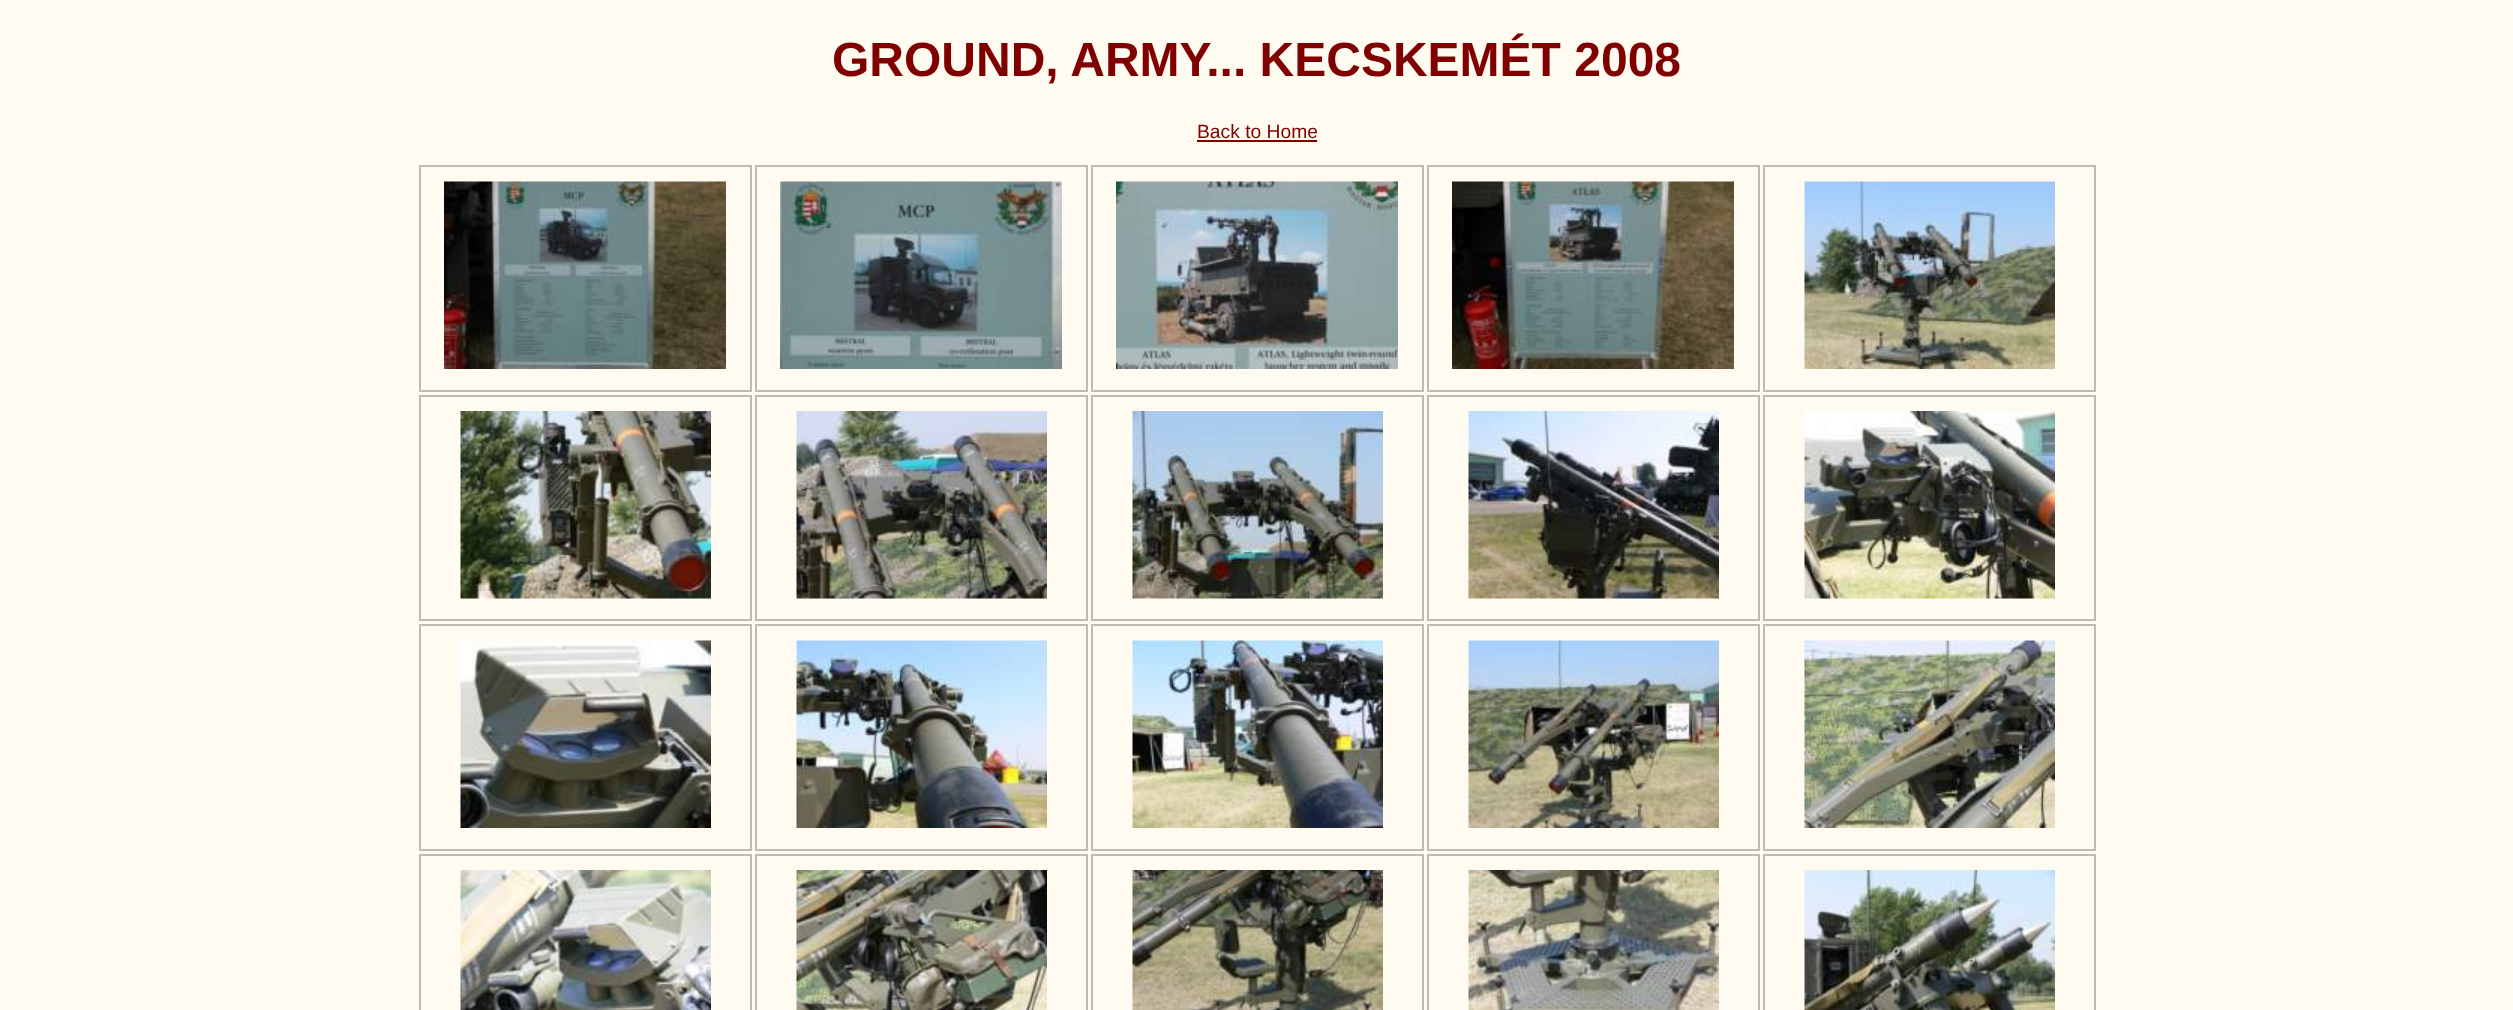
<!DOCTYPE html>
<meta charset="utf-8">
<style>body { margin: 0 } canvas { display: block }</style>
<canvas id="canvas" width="2513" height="1010"></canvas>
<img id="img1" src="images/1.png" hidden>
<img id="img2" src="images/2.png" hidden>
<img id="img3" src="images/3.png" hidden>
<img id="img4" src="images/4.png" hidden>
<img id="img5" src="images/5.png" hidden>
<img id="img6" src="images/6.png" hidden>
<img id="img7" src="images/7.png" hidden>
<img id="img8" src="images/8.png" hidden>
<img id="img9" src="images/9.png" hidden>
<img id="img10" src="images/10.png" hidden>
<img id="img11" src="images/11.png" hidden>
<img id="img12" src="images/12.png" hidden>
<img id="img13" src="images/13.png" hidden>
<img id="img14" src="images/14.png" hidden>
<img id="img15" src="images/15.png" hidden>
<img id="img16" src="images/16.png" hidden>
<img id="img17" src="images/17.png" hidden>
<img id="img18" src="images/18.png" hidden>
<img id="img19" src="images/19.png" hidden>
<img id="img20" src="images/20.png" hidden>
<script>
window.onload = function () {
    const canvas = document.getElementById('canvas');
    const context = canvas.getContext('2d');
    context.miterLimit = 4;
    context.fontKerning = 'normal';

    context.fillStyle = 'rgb(255, 251, 240)';
    context.fillRect(0, 0, 2513, 1010);
    context.fillStyle = 'rgb(128, 0, 0)';
    context.fillRect(1197, 140, 120, 2);
    context.strokeStyle = 'rgb(191, 187, 176)';
    context.lineWidth = 2;
    context.strokeRect(420, 166, 331, 225);
    context.drawImage(document.getElementById('img1'), 444, 181, 282, 188);
    context.strokeRect(756, 166, 331, 225);
    context.drawImage(document.getElementById('img2'), 780, 181, 282, 188);
    context.strokeRect(1092, 166, 331, 225);
    context.drawImage(document.getElementById('img3'), 1116, 181, 282, 188);
    context.strokeRect(1428, 166, 331, 225);
    context.drawImage(document.getElementById('img4'), 1452, 181, 282, 188);
    context.strokeRect(1764, 166, 331, 225);
    context.drawImage(document.getElementById('img5'), 1804, 181, 251, 188);
    context.strokeRect(420, 396, 331, 224);
    context.drawImage(document.getElementById('img6'), 460, 411, 251, 188);
    context.strokeRect(756, 396, 331, 224);
    context.drawImage(document.getElementById('img7'), 796, 411, 251, 188);
    context.strokeRect(1092, 396, 331, 224);
    context.drawImage(document.getElementById('img8'), 1132, 411, 251, 188);
    context.strokeRect(1428, 396, 331, 224);
    context.drawImage(document.getElementById('img9'), 1468, 411, 251, 188);
    context.strokeRect(1764, 396, 331, 224);
    context.drawImage(document.getElementById('img10'), 1804, 411, 251, 188);
    context.strokeRect(420, 625, 331, 225);
    context.drawImage(document.getElementById('img11'), 460, 640, 251, 188);
    context.strokeRect(756, 625, 331, 225);
    context.drawImage(document.getElementById('img12'), 796, 640, 251, 188);
    context.strokeRect(1092, 625, 331, 225);
    context.drawImage(document.getElementById('img13'), 1132, 640, 251, 188);
    context.strokeRect(1428, 625, 331, 225);
    context.drawImage(document.getElementById('img14'), 1468, 640, 251, 188);
    context.strokeRect(1764, 625, 331, 225);
    context.drawImage(document.getElementById('img15'), 1804, 640, 251, 188);
    context.strokeRect(420, 855, 331, 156);
    context.drawImage(document.getElementById('img16'), 460, 870, 251, 140);
    context.strokeRect(756, 855, 331, 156);
    context.drawImage(document.getElementById('img17'), 796, 870, 251, 140);
    context.strokeRect(1092, 855, 331, 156);
    context.drawImage(document.getElementById('img18'), 1132, 870, 251, 140);
    context.strokeRect(1428, 855, 331, 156);
    context.drawImage(document.getElementById('img19'), 1468, 870, 251, 140);
    context.strokeRect(1764, 855, 331, 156);
    context.drawImage(document.getElementById('img20'), 1804, 870, 251, 140);
    context.font = 'bold 48px Liberation Sans';
    context.fillText('GROUND, ARMY... KECSKEMÉT 2008', 832, 76);
    context.font = '19.25px Liberation Sans';
    context.fillText('Back to Home', 1197, 138);
};
</script>
